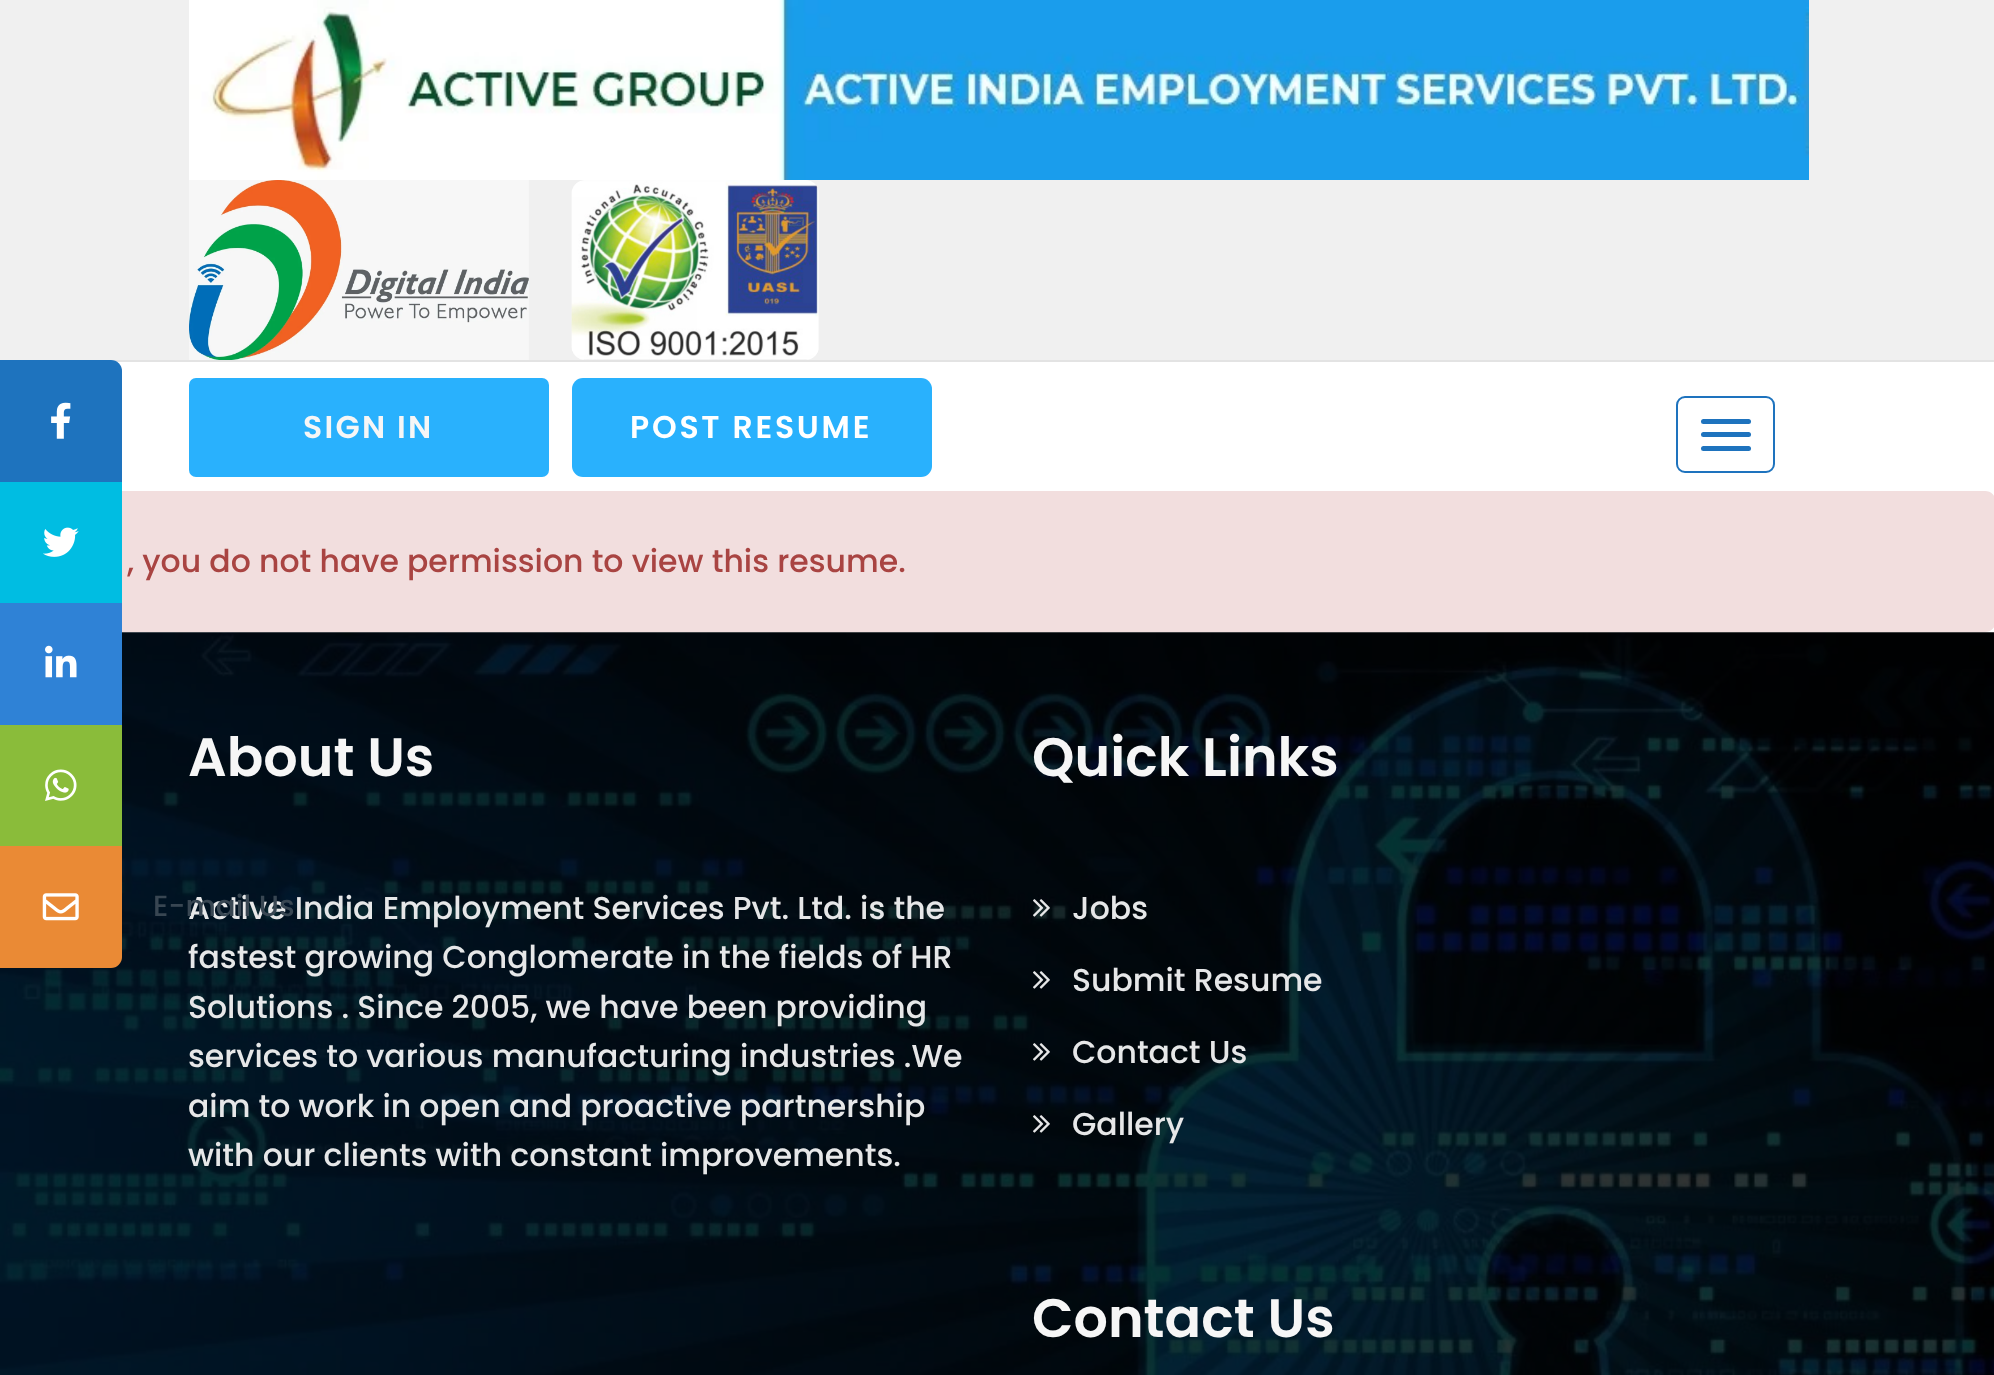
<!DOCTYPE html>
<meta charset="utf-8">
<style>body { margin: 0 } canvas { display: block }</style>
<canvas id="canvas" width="1994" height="1375"></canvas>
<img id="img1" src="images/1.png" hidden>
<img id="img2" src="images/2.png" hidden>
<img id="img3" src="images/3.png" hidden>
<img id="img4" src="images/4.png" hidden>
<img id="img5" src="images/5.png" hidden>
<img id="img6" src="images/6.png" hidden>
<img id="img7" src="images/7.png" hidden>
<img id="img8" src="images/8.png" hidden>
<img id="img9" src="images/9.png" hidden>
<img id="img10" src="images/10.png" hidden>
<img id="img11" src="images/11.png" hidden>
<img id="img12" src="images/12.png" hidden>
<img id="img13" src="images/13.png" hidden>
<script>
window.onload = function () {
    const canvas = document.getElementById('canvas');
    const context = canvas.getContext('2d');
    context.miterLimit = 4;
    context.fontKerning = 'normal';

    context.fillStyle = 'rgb(255, 255, 255)';
    context.fillRect(0, 0, 1994, 1375);
    context.fillStyle = 'rgb(240, 240, 240)';
    context.fillRect(0, 0, 1994, 360);
    context.fillStyle = 'rgb(227, 227, 227)';
    context.fillRect(111, 360, 1883, 2);
    context.drawImage(document.getElementById('img1'), 189, 0, 1620, 180);
    context.drawImage(document.getElementById('img2'), 189, 180, 340, 180);
    context.drawImage(document.getElementById('img3'), 571, 180, 248, 180);
    context.fillStyle = 'rgb(41, 177, 253)';
    context.beginPath();
    context.roundRect(189, 378, 360, 99, 7);
    context.fill();
    context.beginPath();
    context.roundRect(572, 378, 360, 99, 11);
    context.fill();
    context.beginPath();
    context.roundRect(1677, 397, 97, 75, 8);
    context.strokeStyle = 'rgb(30, 115, 190)';
    context.lineWidth = 2;
    context.stroke();
    context.fillStyle = 'rgb(30, 115, 190)';
    context.beginPath();
    context.roundRect(1701, 419, 50, 5, 2.5);
    context.fill();
    context.beginPath();
    context.roundRect(1701, 432, 50, 5, 2.5);
    context.fill();
    context.beginPath();
    context.roundRect(1701, 446, 50, 5, 2.5);
    context.fill();
    context.fillStyle = 'rgb(242, 222, 222)';
    context.beginPath();
    context.roundRect(0, 491, 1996, 141, 11);
    context.fill();
    context.drawImage(document.getElementById('img4'), 0, 632, 1994, 743);
    context.drawImage(document.getElementById('img5'), 1033, 899, 17, 18);
    context.drawImage(document.getElementById('img6'), 1033, 971, 17, 18);
    context.drawImage(document.getElementById('img7'), 1033, 1043, 17, 18);
    context.drawImage(document.getElementById('img8'), 1033, 1115, 17, 18);
    context.fillStyle = 'rgb(30, 115, 190)';
    context.beginPath();
    context.roundRect(0, 360, 122, 122, [0, 11, 0, 0]);
    context.fill();
    context.drawImage(document.getElementById('img9'), 51, 402, 20, 37);
    context.fillStyle = 'rgb(0, 189, 226)';
    context.fillRect(0, 482, 122, 121);
    context.drawImage(document.getElementById('img10'), 43, 527, 36, 30);
    context.fillStyle = 'rgb(47, 130, 214)';
    context.fillRect(0, 603, 122, 122);
    context.drawImage(document.getElementById('img11'), 45, 645, 32, 33);
    context.fillStyle = 'rgb(138, 188, 58)';
    context.fillRect(0, 725, 122, 121);
    context.drawImage(document.getElementById('img12'), 45, 769, 32, 32);
    context.fillStyle = 'rgb(234, 138, 53)';
    context.beginPath();
    context.roundRect(0, 846, 122, 122, [0, 0, 11, 0]);
    context.fill();
    context.drawImage(document.getElementById('img13'), 42, 893, 37, 28);
    context.letterSpacing = '2.25px';
    context.font = '600 31.5px Poppins';
    context.fillStyle = 'rgb(246, 246, 246)';
    context.fillText('SIGN IN', 303, 438);
    context.letterSpacing = '2.75px';
    context.fillStyle = 'rgb(255, 255, 255)';
    context.fillText('POST RESUME', 630, 438);
    context.letterSpacing = '0px';
    context.font = '500 31.5px Poppins';
    context.fillStyle = 'rgb(169, 68, 66)';
    context.fillText(', you do not have permission to view this resume.', 127, 572);
    context.font = '600 54px Poppins';
    context.fillStyle = 'rgb(246, 246, 246)';
    context.fillText('About Us', 188, 776);
    context.font = '500 31.5px Poppins';
    context.fillStyle = 'rgb(230, 231, 232)';
    context.fillText('Active India Employment Services Pvt. Ltd. is the', 188, 919);
    context.fillText('fastest growing Conglomerate in the fields of HR', 188, 968);
    context.fillText('Solutions . Since 2005, we have been providing', 188, 1018);
    context.fillText('services to various manufacturing industries .We', 188, 1067);
    context.fillText('aim to work in open and proactive partnership', 188, 1117);
    context.fillText('with our clients with constant improvements.', 188, 1166);
    context.font = '600 54px Poppins';
    context.fillStyle = 'rgb(246, 246, 246)';
    context.fillText('Quick Links', 1032, 776);
    context.font = '500 31.5px Poppins';
    context.fillStyle = 'rgb(230, 231, 232)';
    context.fillText('Jobs', 1072, 919);
    context.fillText('Submit Resume', 1072, 991);
    context.fillText('Contact Us', 1072, 1063);
    context.fillText('Gallery', 1072, 1135);
    context.font = '600 54px Poppins';
    context.fillStyle = 'rgb(246, 246, 246)';
    context.fillText('Contact Us', 1032, 1337);
    context.font = '500 29.25px Poppins';
    context.fillStyle = 'rgb(56, 70, 82)';
    context.fillText('E-mail Us', 153, 916);
};
</script>
